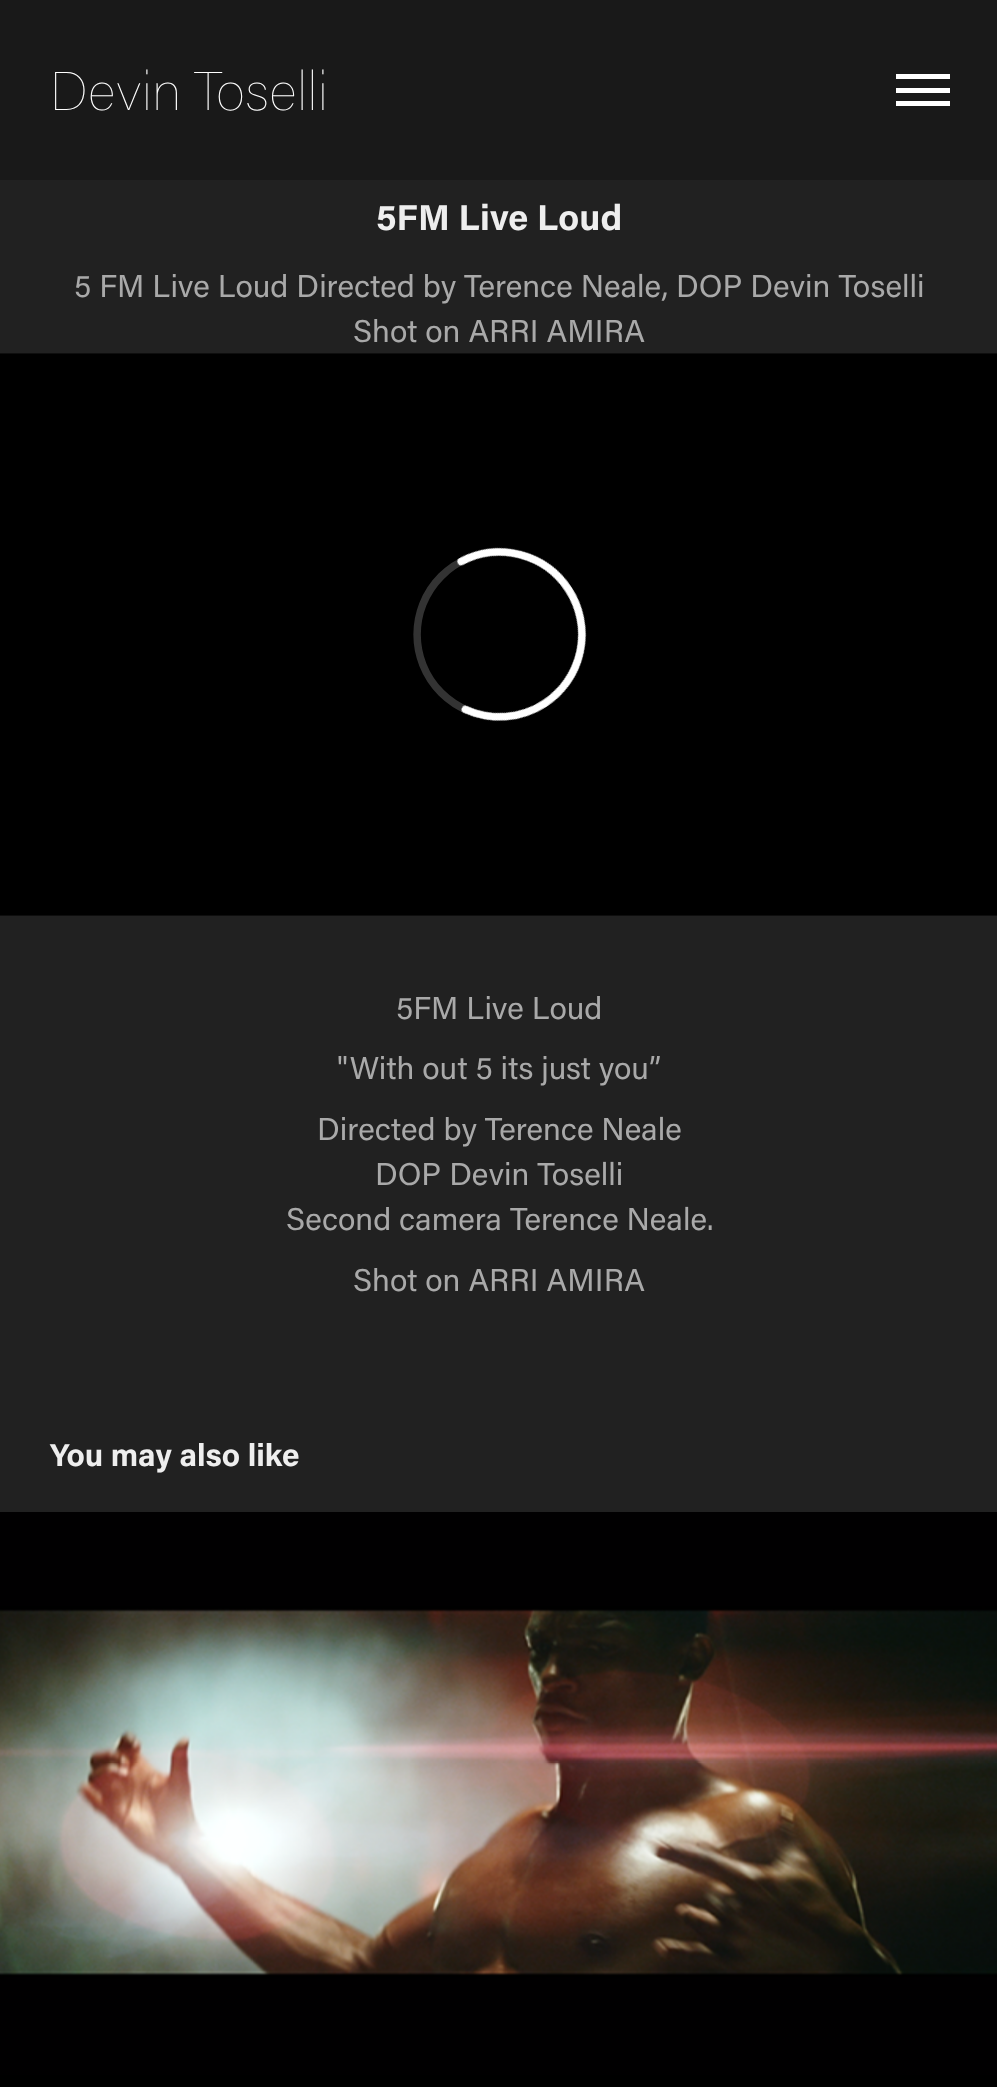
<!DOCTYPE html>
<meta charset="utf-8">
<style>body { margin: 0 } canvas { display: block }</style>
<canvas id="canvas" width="997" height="2087"></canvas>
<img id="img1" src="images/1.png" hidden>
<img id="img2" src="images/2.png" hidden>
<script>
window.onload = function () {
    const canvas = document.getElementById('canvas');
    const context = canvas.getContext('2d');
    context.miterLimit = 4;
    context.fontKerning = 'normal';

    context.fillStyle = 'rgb(33, 33, 33)';
    context.fillRect(0, 0, 997, 2087);
    context.fillStyle = 'rgb(25, 25, 25)';
    context.fillRect(0, 0, 997, 180);
    context.fillStyle = 'rgb(255, 255, 255)';
    context.fillRect(896, 74, 54, 5);
    context.fillRect(896, 88, 54, 5);
    context.fillRect(896, 101, 54, 5);
    context.drawImage(document.getElementById('img1'), 0, 353, 997, 563);
    context.drawImage(document.getElementById('img2'), 0, 1512, 997, 563);
    context.fillStyle = 'rgb(0, 0, 0)';
    context.fillRect(0, 2075, 997, 12);
    context.font = '100 54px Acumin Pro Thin';
    context.fillStyle = 'rgb(255, 255, 255)';
    context.fillText('Devin Toselli', 50, 110);
    context.font = 'bold 36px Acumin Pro';
    context.fillStyle = 'rgb(238, 238, 238)';
    context.fillText('5FM Live Loud', 376, 230);
    context.font = '31.5px Acumin Pro';
    context.fillStyle = 'rgb(169, 169, 169)';
    context.fillText('5 FM Live Loud Directed by Terence Neale, DOP Devin Toselli', 74, 297);
    context.fillText('Shot on ARRI AMIRA', 353, 342);
    context.fillText('5FM Live Loud', 396, 1019);
    context.fillText('"With out 5 its just you”', 337, 1079);
    context.fillText('Directed by Terence Neale', 317, 1140);
    context.fillText('DOP Devin Toselli', 375, 1185);
    context.fillText('Second camera Terence Neale.', 286, 1230);
    context.fillText('Shot on ARRI AMIRA', 353, 1291);
    context.font = 'bold 31.5px Acumin Pro';
    context.fillStyle = 'rgb(238, 238, 238)';
    context.fillText('You may also like', 50, 1466);
};
</script>
